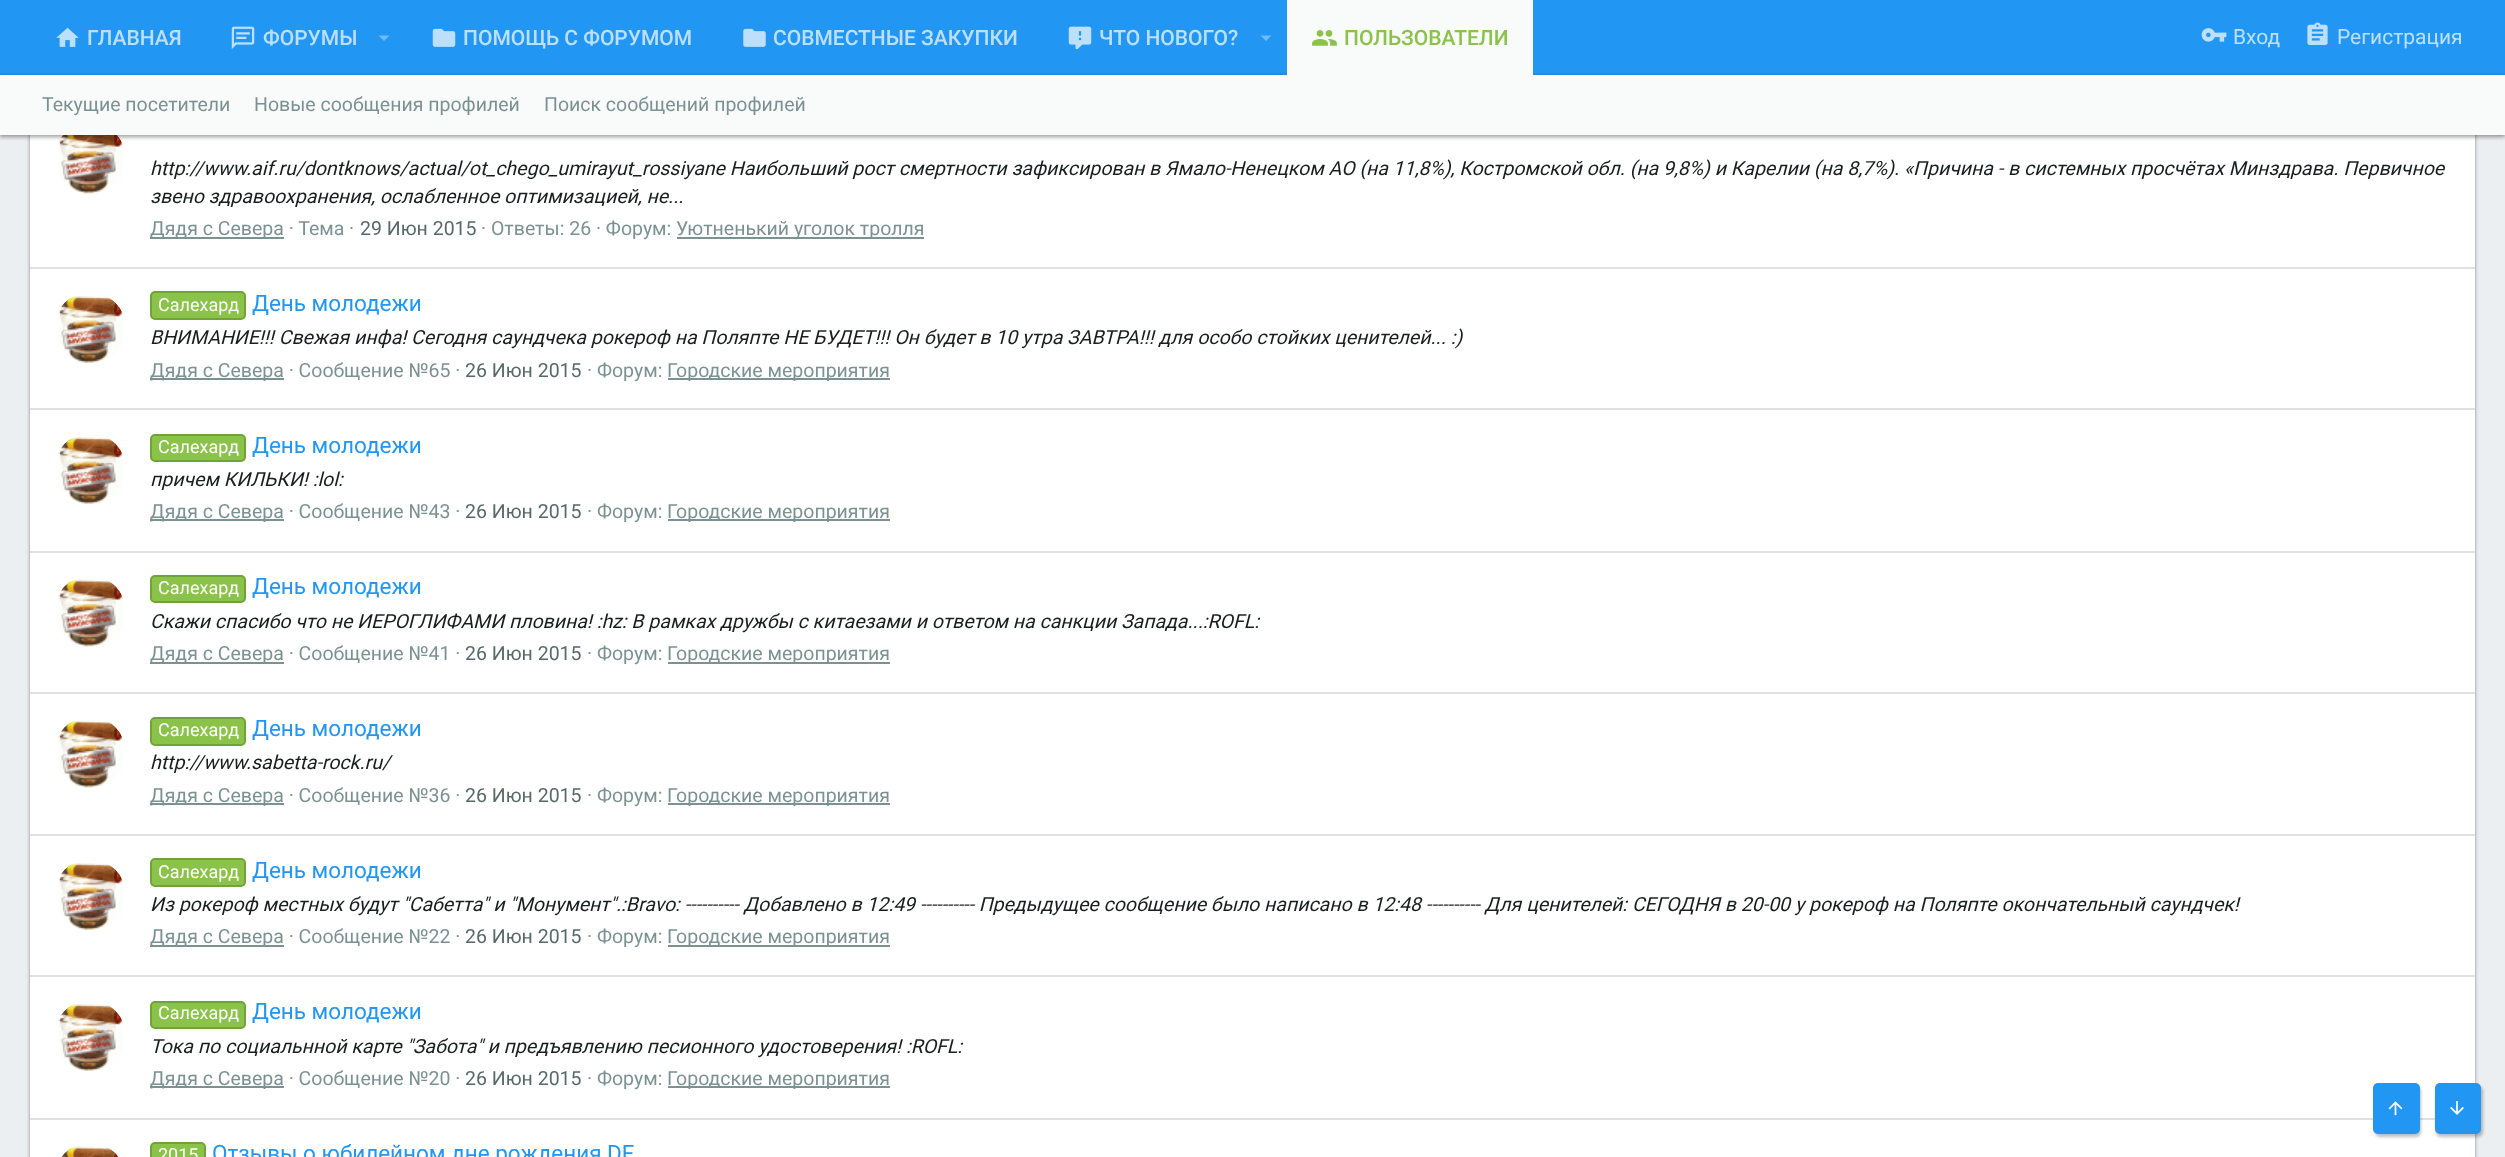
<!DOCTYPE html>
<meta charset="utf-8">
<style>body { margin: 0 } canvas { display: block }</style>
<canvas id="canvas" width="2505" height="1157"></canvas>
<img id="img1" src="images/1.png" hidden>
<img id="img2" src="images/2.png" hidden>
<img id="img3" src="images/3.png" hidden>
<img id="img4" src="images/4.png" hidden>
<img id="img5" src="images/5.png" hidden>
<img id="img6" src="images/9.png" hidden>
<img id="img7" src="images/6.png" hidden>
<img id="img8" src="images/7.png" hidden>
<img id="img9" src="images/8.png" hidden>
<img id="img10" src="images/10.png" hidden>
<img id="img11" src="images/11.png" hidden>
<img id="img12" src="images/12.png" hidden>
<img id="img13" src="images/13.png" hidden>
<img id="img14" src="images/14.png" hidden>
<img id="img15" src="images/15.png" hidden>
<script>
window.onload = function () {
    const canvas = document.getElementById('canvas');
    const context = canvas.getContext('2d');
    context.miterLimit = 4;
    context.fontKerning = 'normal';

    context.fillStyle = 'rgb(236, 239, 241)';
    context.fillRect(0, 0, 2505, 1157);
    context.fillStyle = 'rgba(0, 0, 0, 0.2)';
    context.filter = 'blur(2px)';
    context.beginPath();
    context.roundRect(30, -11, 2445, 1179, 5);
    context.fill();
    context.filter = 'none';
    context.fillStyle = 'rgba(0, 0, 0, 0.12)';
    context.filter = 'blur(1.5px)';
    context.beginPath();
    context.roundRect(30, -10, 2445, 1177, 5);
    context.fill();
    context.filter = 'none';
    context.fillStyle = 'rgba(0, 0, 0, 0.14)';
    context.filter = 'blur(1.5px)';
    context.beginPath();
    context.roundRect(30, -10, 2445, 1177, 5);
    context.fill();
    context.filter = 'none';
    context.fillStyle = 'rgb(33, 150, 243)';
    context.fillRect(0, 0, 2505, 75);
    context.drawImage(document.getElementById('img1'), 56, 27, 23, 20);
    context.drawImage(document.getElementById('img2'), 231, 26, 24, 23);
    context.fillStyle = 'rgb(111, 187, 247)';
    context.beginPath();
    context.moveTo(378.5, 35.5);
    context.lineTo(384, 41);
    context.lineTo(389.5, 35.5);
    context.closePath();
    context.fill();
    context.drawImage(document.getElementById('img3'), 432, 28, 24, 19);
    context.drawImage(document.getElementById('img4'), 743, 28, 23, 19);
    context.drawImage(document.getElementById('img5'), 1068, 26, 24, 24);
    context.beginPath();
    context.moveTo(1260.5, 35.5);
    context.lineTo(1266, 41);
    context.lineTo(1271.5, 35.5);
    context.closePath();
    context.fill();
    context.fillStyle = 'rgb(255, 255, 255)';
    context.fillRect(30, 135, 2445, 1022);
    context.drawImage(document.getElementById('img6'), 58, 135, 65, 59);
    context.fillStyle = 'rgba(0, 0, 0, 0.2)';
    context.filter = 'blur(2px)';
    context.beginPath();
    context.rect(0, 77, 2505, 60);
    context.fill();
    context.filter = 'none';
    context.fillStyle = 'rgba(0, 0, 0, 0.12)';
    context.filter = 'blur(1.5px)';
    context.beginPath();
    context.rect(0, 78, 2505, 60);
    context.fill();
    context.filter = 'none';
    context.fillStyle = 'rgba(0, 0, 0, 0.14)';
    context.filter = 'blur(1.5px)';
    context.beginPath();
    context.rect(0, 75, 2505, 60);
    context.fill();
    context.filter = 'none';
    context.fillStyle = 'rgb(249, 250, 250)';
    context.fillRect(1287, 0, 246, 75);
    context.drawImage(document.getElementById('img7'), 1312, 30, 25, 16);
    context.drawImage(document.getElementById('img8'), 2201, 28, 26, 14);
    context.drawImage(document.getElementById('img9'), 2307, 22, 21, 23);
    context.fillRect(0, 75, 2505, 60);
    context.fillStyle = 'rgb(124, 146, 146)';
    context.fillRect(150, 237, 134, 2);
    context.fillRect(677, 237, 247, 2);
    context.fillStyle = 'rgb(224, 224, 224)';
    context.fillRect(30, 267, 2445, 2);
    context.drawImage(document.getElementById('img10'), 58, 296, 65, 67);
    context.fillStyle = 'rgb(139, 195, 74)';
    context.beginPath();
    context.roundRect(151, 292, 94, 27, 4);
    context.fill();
    context.strokeStyle = 'rgb(113, 164, 54)';
    context.lineWidth = 2;
    context.stroke();
    context.fillStyle = 'rgb(124, 146, 146)';
    context.fillRect(150, 378, 134, 2);
    context.fillRect(668, 378, 222, 2);
    context.fillStyle = 'rgb(224, 224, 224)';
    context.fillRect(30, 408, 2445, 2);
    context.drawImage(document.getElementById('img10'), 58, 437, 65, 67);
    context.fillStyle = 'rgb(139, 195, 74)';
    context.beginPath();
    context.roundRect(151, 435, 94, 26, 4);
    context.fill();
    context.stroke();
    context.fillStyle = 'rgb(124, 146, 146)';
    context.fillRect(150, 519, 134, 2);
    context.fillRect(668, 519, 222, 2);
    context.fillStyle = 'rgb(224, 224, 224)';
    context.fillRect(30, 551, 2445, 2);
    context.drawImage(document.getElementById('img11'), 58, 579, 65, 68);
    context.fillStyle = 'rgb(139, 195, 74)';
    context.beginPath();
    context.roundRect(151, 576, 94, 26, 4);
    context.fill();
    context.stroke();
    context.fillStyle = 'rgb(124, 146, 146)';
    context.fillRect(150, 662, 134, 2);
    context.fillRect(668, 662, 222, 2);
    context.fillStyle = 'rgb(224, 224, 224)';
    context.fillRect(30, 692, 2445, 2);
    context.drawImage(document.getElementById('img12'), 58, 720, 65, 68);
    context.fillStyle = 'rgb(139, 195, 74)';
    context.beginPath();
    context.roundRect(151, 718, 94, 27, 4);
    context.fill();
    context.stroke();
    context.fillStyle = 'rgb(124, 146, 146)';
    context.fillRect(150, 803, 134, 2);
    context.fillRect(668, 803, 222, 2);
    context.fillStyle = 'rgb(224, 224, 224)';
    context.fillRect(30, 834, 2445, 2);
    context.drawImage(document.getElementById('img10'), 58, 863, 65, 67);
    context.fillStyle = 'rgb(139, 195, 74)';
    context.beginPath();
    context.roundRect(151, 859, 94, 27, 4);
    context.fill();
    context.stroke();
    context.fillStyle = 'rgb(124, 146, 146)';
    context.fillRect(150, 945, 134, 2);
    context.fillRect(668, 945, 222, 2);
    context.fillStyle = 'rgb(224, 224, 224)';
    context.fillRect(30, 975, 2445, 2);
    context.drawImage(document.getElementById('img10'), 58, 1004, 65, 67);
    context.fillStyle = 'rgb(139, 195, 74)';
    context.beginPath();
    context.roundRect(151, 1002, 94, 26, 4);
    context.fill();
    context.stroke();
    context.fillStyle = 'rgb(124, 146, 146)';
    context.fillRect(150, 1086, 134, 2);
    context.fillRect(668, 1086, 222, 2);
    context.fillStyle = 'rgb(224, 224, 224)';
    context.fillRect(30, 1118, 2405, 2);
    context.drawImage(document.getElementById('img13'), 61, 1146, 58, 11);
    context.fillStyle = 'rgb(139, 195, 74)';
    context.beginPath();
    context.roundRect(151, 1143, 54, 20, 4);
    context.fill();
    context.stroke();
    context.fillStyle = 'rgba(0, 0, 0, 0.25)';
    context.filter = 'blur(1.5px)';
    context.beginPath();
    context.roundRect(2375, 1086, 46, 51, 5);
    context.fill();
    context.filter = 'none';
    context.fillStyle = 'rgb(33, 150, 243)';
    context.beginPath();
    context.roundRect(2373, 1083, 47, 51, 5);
    context.fill();
    context.drawImage(document.getElementById('img14'), 2388, 1101, 15, 15);
    context.fillStyle = 'rgba(0, 0, 0, 0.25)';
    context.filter = 'blur(1.5px)';
    context.beginPath();
    context.roundRect(2436, 1086, 47, 51, 5);
    context.fill();
    context.filter = 'none';
    context.fillStyle = 'rgb(33, 150, 243)';
    context.beginPath();
    context.roundRect(2435, 1083, 46, 51, 5);
    context.fill();
    context.drawImage(document.getElementById('img15'), 2450, 1101, 14, 14);
    context.font = '500 21px Roboto';
    context.fillStyle = 'rgb(188, 224, 251)';
    context.fillText('ГЛАВНАЯ', 87, 45);
    context.fillText('ФОРУМЫ', 263, 45);
    context.fillText('ПОМОЩЬ С ФОРУМОМ', 463, 45);
    context.fillText('СОВМЕСТНЫЕ ЗАКУПКИ', 773, 45);
    context.fillText('ЧТО НОВОГО?', 1099, 45);
    context.fillStyle = 'rgb(139, 195, 74)';
    context.fillText('ПОЛЬЗОВАТЕЛИ', 1344, 45);
    context.font = '21px Roboto';
    context.fillStyle = 'rgb(188, 224, 251)';
    context.fillText('Вход', 2233, 44);
    context.fillText('Регистрация', 2337, 44);
    context.font = '19.5px Roboto';
    context.fillStyle = 'rgb(124, 146, 146)';
    context.fillText('Текущие посетители', 42, 111);
    context.fillText('Новые сообщения профилей', 254, 111);
    context.fillText('Поиск сообщений профилей', 544, 111);
    context.font = 'italic 19.5px Roboto';
    context.fillStyle = 'rgb(25, 30, 30)';
    context.fillText('http://www.aif.ru/dontknows/actual/ot_chego_umirayut_rossiyane Наибольший рост смертности зафиксирован в Ямало-Ненецком АО (на 11,8%), Костромской обл. (на 9,8%) и Карелии (на 8,7%). «Причина - в системных просчётах Минздрава. Первичное', 150, 175);
    context.fillText('звено здравоохранения, ослабленное оптимизацией, не...', 150, 203);
    context.font = '19.5px Roboto';
    context.fillStyle = 'rgb(124, 146, 146)';
    context.fillText('Дядя с Севера · Тема ·', 150, 235);
    context.fillStyle = 'rgb(88, 105, 105)';
    context.fillText('29 Июн 2015', 360, 235);
    context.fillStyle = 'rgb(124, 146, 146)';
    context.fillText('· Ответы: 26 · Форум:', 481, 235);
    context.fillText('Уютненький уголок тролля', 676, 235);
    context.font = '18px Roboto';
    context.fillStyle = 'rgb(255, 255, 255)';
    context.fillText('Салехард', 158, 311);
    context.font = '22.5px Roboto';
    context.fillStyle = 'rgb(33, 150, 243)';
    context.fillText('День молодежи', 252, 311);
    context.font = 'italic 19.5px Roboto';
    context.fillStyle = 'rgb(25, 30, 30)';
    context.fillText('ВНИМАНИЕ!!! Свежая инфа! Сегодня саундчека рокероф на Поляпте НЕ БУДЕТ!!! Он будет в 10 утра ЗАВТРА!!! для особо стойких ценителей... :)', 150, 344);
    context.font = '19.5px Roboto';
    context.fillStyle = 'rgb(124, 146, 146)';
    context.fillText('Дядя с Севера · Сообщение №65 ·', 150, 377);
    context.fillStyle = 'rgb(88, 105, 105)';
    context.fillText('26 Июн 2015', 465, 377);
    context.fillStyle = 'rgb(124, 146, 146)';
    context.fillText('· Форум:', 587, 377);
    context.fillText('Городские мероприятия', 667, 377);
    context.font = '18px Roboto';
    context.fillStyle = 'rgb(255, 255, 255)';
    context.fillText('Салехард', 158, 453);
    context.font = '22.5px Roboto';
    context.fillStyle = 'rgb(33, 150, 243)';
    context.fillText('День молодежи', 252, 453);
    context.font = 'italic 19.5px Roboto';
    context.fillStyle = 'rgb(25, 30, 30)';
    context.fillText('причем КИЛЬКИ! :lol:', 150, 486);
    context.font = '19.5px Roboto';
    context.fillStyle = 'rgb(124, 146, 146)';
    context.fillText('Дядя с Севера · Сообщение №43 ·', 150, 518);
    context.fillStyle = 'rgb(88, 105, 105)';
    context.fillText('26 Июн 2015', 465, 518);
    context.fillStyle = 'rgb(124, 146, 146)';
    context.fillText('· Форум:', 587, 518);
    context.fillText('Городские мероприятия', 667, 518);
    context.font = '18px Roboto';
    context.fillStyle = 'rgb(255, 255, 255)';
    context.fillText('Салехард', 158, 594);
    context.font = '22.5px Roboto';
    context.fillStyle = 'rgb(33, 150, 243)';
    context.fillText('День молодежи', 252, 594);
    context.font = 'italic 19.5px Roboto';
    context.fillStyle = 'rgb(25, 30, 30)';
    context.fillText('Скажи спасибо что не ИЕРОГЛИФАМИ пловина! :hz: В рамках дружбы с китаезами и ответом на санкции Запада...:ROFL:', 150, 628);
    context.font = '19.5px Roboto';
    context.fillStyle = 'rgb(124, 146, 146)';
    context.fillText('Дядя с Севера · Сообщение №41 ·', 150, 660);
    context.fillStyle = 'rgb(88, 105, 105)';
    context.fillText('26 Июн 2015', 465, 660);
    context.fillStyle = 'rgb(124, 146, 146)';
    context.fillText('· Форум:', 587, 660);
    context.fillText('Городские мероприятия', 667, 660);
    context.font = '18px Roboto';
    context.fillStyle = 'rgb(255, 255, 255)';
    context.fillText('Салехард', 158, 736);
    context.font = '22.5px Roboto';
    context.fillStyle = 'rgb(33, 150, 243)';
    context.fillText('День молодежи', 252, 736);
    context.font = 'italic 19.5px Roboto';
    context.fillStyle = 'rgb(25, 30, 30)';
    context.fillText('http://www.sabetta-rock.ru/', 150, 769);
    context.font = '19.5px Roboto';
    context.fillStyle = 'rgb(124, 146, 146)';
    context.fillText('Дядя с Севера · Сообщение №36 ·', 150, 802);
    context.fillStyle = 'rgb(88, 105, 105)';
    context.fillText('26 Июн 2015', 465, 802);
    context.fillStyle = 'rgb(124, 146, 146)';
    context.fillText('· Форум:', 587, 802);
    context.fillText('Городские мероприятия', 667, 802);
    context.font = '18px Roboto';
    context.fillStyle = 'rgb(255, 255, 255)';
    context.fillText('Салехард', 158, 878);
    context.font = '22.5px Roboto';
    context.fillStyle = 'rgb(33, 150, 243)';
    context.fillText('День молодежи', 252, 878);
    context.font = 'italic 19.5px Roboto';
    context.fillStyle = 'rgb(25, 30, 30)';
    context.fillText('Из рокероф местных будут "Сабетта" и "Монумент".:Bravo: ---------- Добавлено в 12:49 ---------- Предыдущее сообщение было написано в 12:48 ---------- Для ценителей: СЕГОДНЯ в 20-00 у рокероф на Поляпте окончательный саундчек!', 150, 911);
    context.font = '19.5px Roboto';
    context.fillStyle = 'rgb(124, 146, 146)';
    context.fillText('Дядя с Севера · Сообщение №22 ·', 150, 943);
    context.fillStyle = 'rgb(88, 105, 105)';
    context.fillText('26 Июн 2015', 465, 943);
    context.fillStyle = 'rgb(124, 146, 146)';
    context.fillText('· Форум:', 587, 943);
    context.fillText('Городские мероприятия', 667, 943);
    context.font = '18px Roboto';
    context.fillStyle = 'rgb(255, 255, 255)';
    context.fillText('Салехард', 158, 1019);
    context.font = '22.5px Roboto';
    context.fillStyle = 'rgb(33, 150, 243)';
    context.fillText('День молодежи', 252, 1019);
    context.font = 'italic 19.5px Roboto';
    context.fillStyle = 'rgb(25, 30, 30)';
    context.fillText('Тока по социальнной карте "Забота" и предъявлению песионного удостоверения! :ROFL:', 150, 1053);
    context.font = '19.5px Roboto';
    context.fillStyle = 'rgb(124, 146, 146)';
    context.fillText('Дядя с Севера · Сообщение №20 ·', 150, 1085);
    context.fillStyle = 'rgb(88, 105, 105)';
    context.fillText('26 Июн 2015', 465, 1085);
    context.fillStyle = 'rgb(124, 146, 146)';
    context.fillText('· Форум:', 587, 1085);
    context.fillText('Городские мероприятия', 667, 1085);
    context.font = '18px Roboto';
    context.fillStyle = 'rgb(255, 255, 255)';
    context.fillText('2015', 158, 1161);
    context.font = '22.5px Roboto';
    context.fillStyle = 'rgb(33, 150, 243)';
    context.fillText('Отзывы о юбилейном дне рождения DF', 212, 1161);
};
</script>
